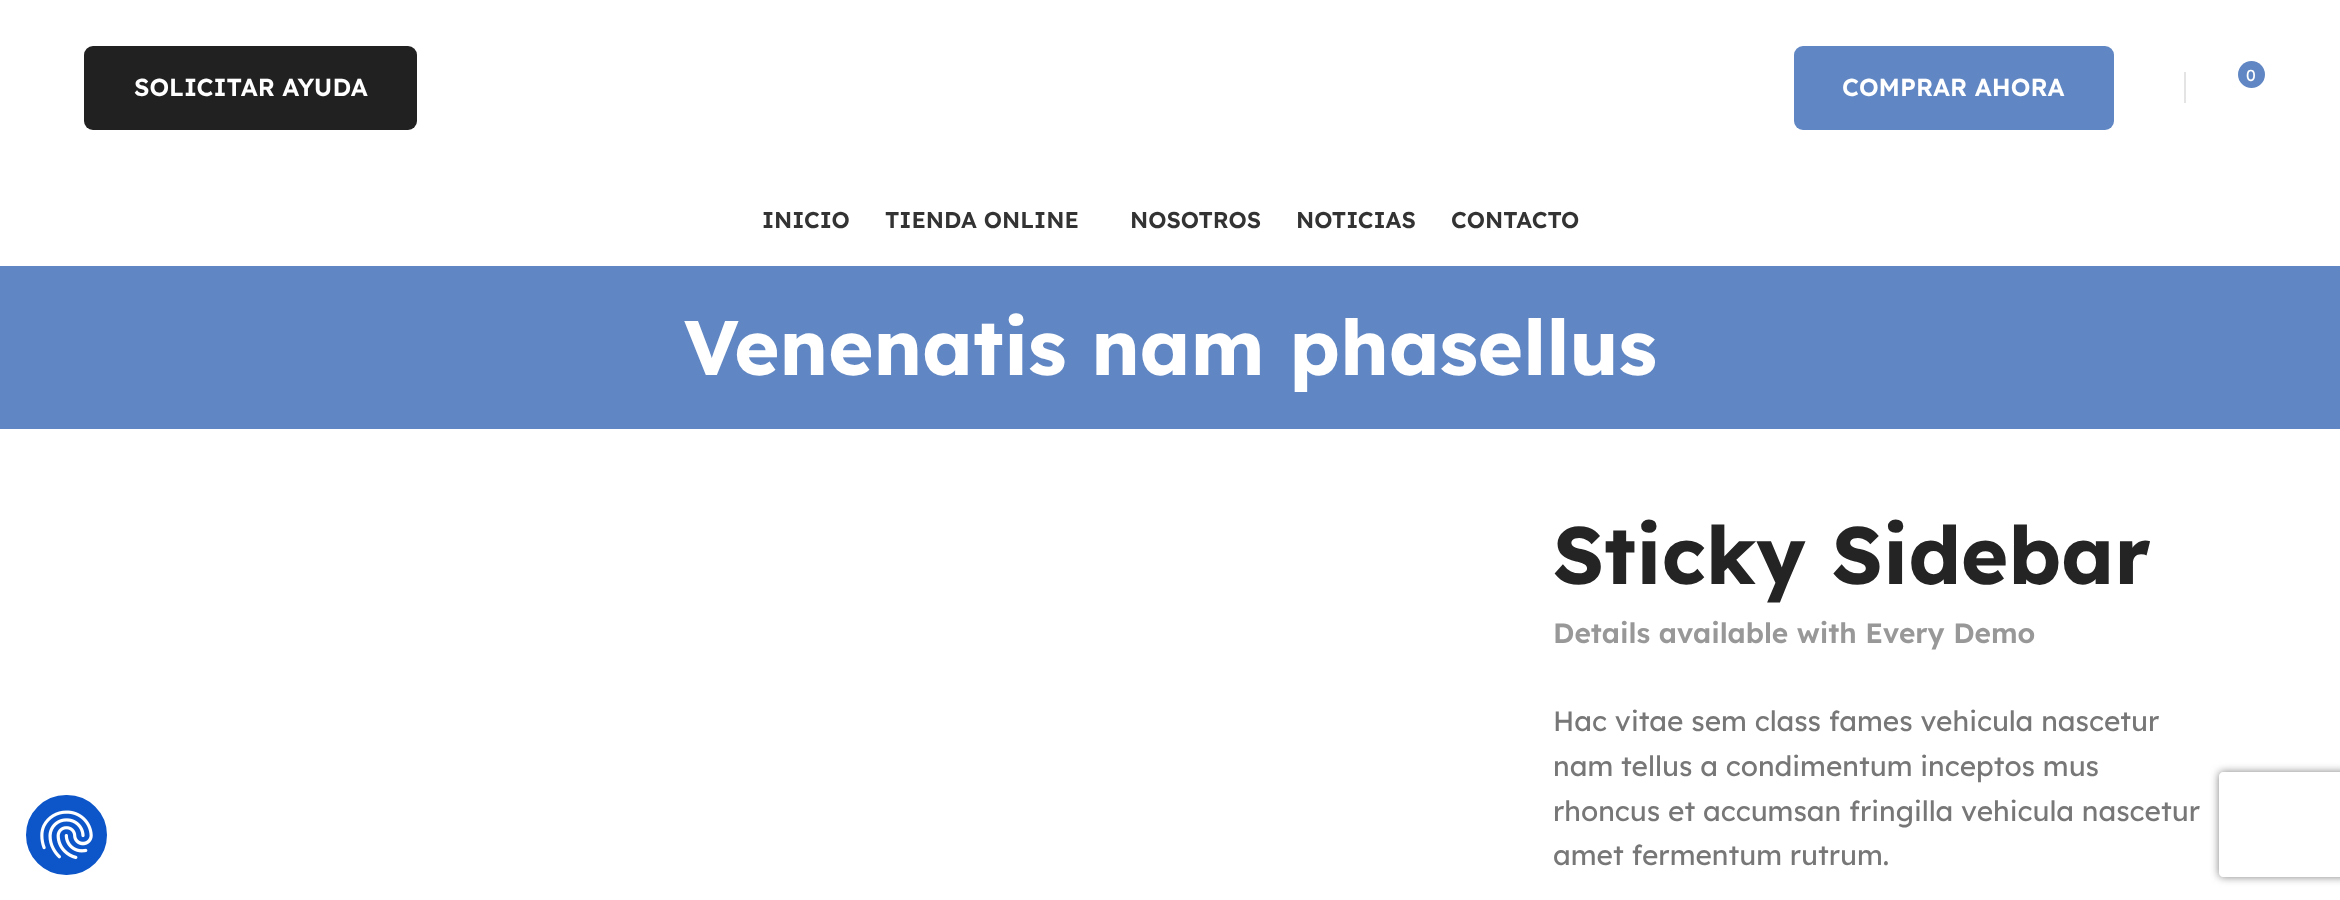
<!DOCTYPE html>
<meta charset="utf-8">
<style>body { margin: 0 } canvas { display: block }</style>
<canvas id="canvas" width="2340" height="900"></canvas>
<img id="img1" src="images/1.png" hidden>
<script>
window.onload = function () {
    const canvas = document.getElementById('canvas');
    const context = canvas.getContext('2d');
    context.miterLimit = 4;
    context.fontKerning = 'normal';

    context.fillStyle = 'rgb(255, 255, 255)';
    context.fillRect(0, 0, 2340, 900);
    context.fillStyle = 'rgb(13, 86, 201)';
    context.beginPath();
    context.roundRect(27, 796, 79, 78, 39);
    context.fill();
    context.strokeStyle = 'rgb(13, 86, 201)';
    context.lineWidth = 2;
    context.stroke();
    context.drawImage(document.getElementById('img1'), 40, 810, 53, 50);
    context.fillStyle = 'rgb(33, 33, 33)';
    context.beginPath();
    context.roundRect(84, 46, 333, 84, 9);
    context.fill();
    context.fillStyle = 'rgb(96, 135, 195)';
    context.beginPath();
    context.roundRect(1794, 46, 320, 84, 9);
    context.fill();
    context.fillStyle = 'rgb(228, 228, 228)';
    context.fillRect(2184, 72, 2, 31);
    context.fillStyle = 'rgb(96, 135, 195)';
    context.beginPath();
    context.arc(2251.5, 74.5, 13.5, 0, 2 * Math.PI);
    context.fill();
    context.fillRect(0, 266, 2340, 163);
    context.save();
    context.beginPath();
    context.moveTo(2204, 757);
    context.lineTo(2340, 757);
    context.lineTo(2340, 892);
    context.lineTo(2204, 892);
    context.closePath();
    context.moveTo(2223, 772);
    context.lineTo(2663, 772);
    context.bezierCurveTo(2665, 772, 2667, 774, 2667, 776);
    context.lineTo(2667, 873);
    context.bezierCurveTo(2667, 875, 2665, 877, 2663, 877);
    context.lineTo(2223, 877);
    context.bezierCurveTo(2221, 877, 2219, 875, 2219, 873);
    context.lineTo(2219, 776);
    context.bezierCurveTo(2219, 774, 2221, 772, 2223, 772);
    context.closePath();
    context.clip('evenodd');
    context.fillStyle = 'rgb(128, 128, 128)';
    context.filter = 'blur(4.5px)';
    context.beginPath();
    context.roundRect(2219, 772, 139, 105, 4);
    context.fill();
    context.filter = 'none';
    context.restore();
    context.font = '600 24.5px Lexend';
    context.fillStyle = 'rgb(255, 255, 255)';
    context.fillText('SOLICITAR AYUDA', 134, 96);
    context.fillText('COMPRAR AHORA', 1842, 96);
    context.font = '16px Lexend';
    context.fillText('0', 2246, 81);
    context.font = '600 22.75px Lexend';
    context.fillStyle = 'rgb(51, 51, 51)';
    context.fillText('INICIO', 762, 228);
    context.fillText('TIENDA ONLINE', 885, 228);
    context.fillText('NOSOTROS', 1130, 228);
    context.fillText('NOTICIAS', 1296, 228);
    context.fillText('CONTACTO', 1451, 228);
    context.font = 'bold 77px Lexend';
    context.fillStyle = 'rgb(255, 255, 255)';
    context.fillText('Venenatis nam phasellus', 684, 375);
    context.font = 'bold 80.5px Lexend';
    context.fillStyle = 'rgb(36, 36, 36)';
    context.fillText('Sticky Sidebar', 1553, 584);
    context.font = '600 28px Lexend';
    context.fillStyle = 'rgb(152, 152, 152)';
    context.fillText('Details available with Every Demo', 1553, 643);
    context.font = '28px Lexend';
    context.fillStyle = 'rgb(119, 119, 119)';
    context.fillText('Hac vitae sem class fames vehicula nascetur', 1553, 731);
    context.fillText('nam tellus a condimentum inceptos mus', 1553, 776);
    context.fillText('rhoncus et accumsan fringilla vehicula nascetur', 1553, 821);
    context.fillText('amet fermentum rutrum.', 1553, 865);
};
</script>
